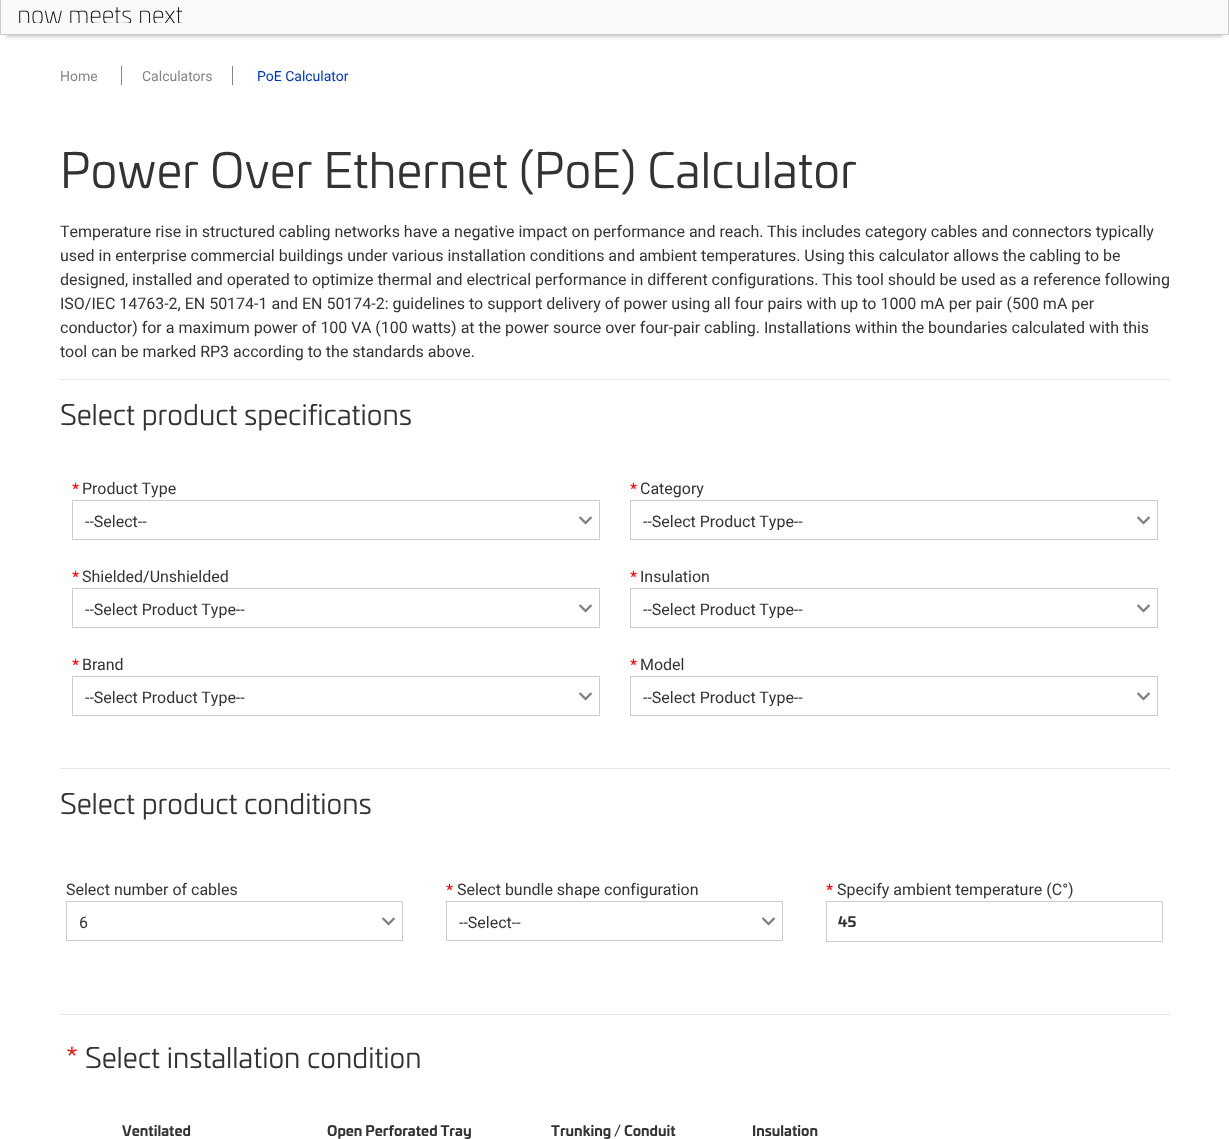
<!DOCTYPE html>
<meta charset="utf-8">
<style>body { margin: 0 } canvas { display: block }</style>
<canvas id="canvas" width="1229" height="1139"></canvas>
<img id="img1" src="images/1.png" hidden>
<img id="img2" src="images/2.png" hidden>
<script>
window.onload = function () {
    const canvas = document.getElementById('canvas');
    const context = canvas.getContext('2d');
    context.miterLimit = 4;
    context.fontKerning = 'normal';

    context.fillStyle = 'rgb(255, 255, 255)';
    context.fillRect(0, 0, 1229, 1139);
    context.fillStyle = 'rgba(0, 0, 0, 0.29)';
    context.filter = 'blur(2px)';
    context.beginPath();
    context.rect(6, -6, 1217, 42);
    context.fill();
    context.filter = 'none';
    context.fillStyle = 'rgb(249, 249, 249)';
    context.beginPath();
    context.rect(0.5, -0.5, 1228, 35);
    context.fill();
    context.strokeStyle = 'rgb(204, 204, 204)';
    context.stroke();
    context.drawImage(document.getElementById('img1'), 19, 7, 164, 16);
    context.fillStyle = 'rgb(133, 133, 133)';
    context.fillRect(121, 66, 1, 19);
    context.fillRect(232, 66, 1, 19);
    context.fillStyle = 'rgb(230, 230, 230)';
    context.fillRect(60, 379, 1110, 1);
    context.drawImage(document.getElementById('img2'), 578, 516, 15, 9);
    context.strokeRect(72.5, 500.5, 527, 39);
    context.drawImage(document.getElementById('img2'), 1136, 516, 15, 9);
    context.strokeRect(630.5, 500.5, 527, 39);
    context.drawImage(document.getElementById('img2'), 578, 604, 15, 9);
    context.strokeRect(72.5, 588.5, 527, 39);
    context.drawImage(document.getElementById('img2'), 1136, 604, 15, 9);
    context.strokeRect(630.5, 588.5, 527, 39);
    context.drawImage(document.getElementById('img2'), 578, 692, 15, 9);
    context.strokeRect(72.5, 676.5, 527, 39);
    context.drawImage(document.getElementById('img2'), 1136, 692, 15, 9);
    context.strokeRect(630.5, 676.5, 527, 39);
    context.fillRect(60, 768, 1110, 1);
    context.drawImage(document.getElementById('img2'), 381, 917, 15, 9);
    context.strokeRect(66.5, 901.5, 336, 39);
    context.drawImage(document.getElementById('img2'), 761, 917, 15, 9);
    context.strokeRect(446.5, 901.5, 336, 39);
    context.strokeRect(826.5, 901.5, 336, 40);
    context.fillRect(60, 1014, 1110, 1);
    context.font = '14px Roboto';
    context.fillStyle = 'rgb(133, 133, 133)';
    context.fillText('Home', 60, 81);
    context.fillText('Calculators', 142, 81);
    context.fillStyle = 'rgb(0, 57, 193)';
    context.fillText('PoE Calculator', 257, 81);
    context.font = '48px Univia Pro';
    context.fillStyle = 'rgb(51, 51, 51)';
    context.fillText('Power Over Ethernet (PoE) Calculator', 60, 188);
    context.font = '16px Roboto';
    context.fillText('Temperature rise in structured cabling networks have a negative impact on performance and reach. This includes category cables and connectors typically', 60, 237);
    context.fillText('used in enterprise commercial buildings under various installation conditions and ambient temperatures. Using this calculator allows the cabling to be', 60, 261);
    context.fillText('designed, installed and operated to optimize thermal and electrical performance in different configurations. This tool should be used as a reference following', 60, 285);
    context.fillText('ISO/IEC 14763-2, EN 50174-1 and EN 50174-2: guidelines to support delivery of power using all four pairs with up to 1000 mA per pair (500 mA per', 60, 309);
    context.fillText('conductor) for a maximum power of 100 VA (100 watts) at the power source over four-pair cabling. Installations within the boundaries calculated with this', 60, 333);
    context.fillText('tool can be marked RP3 according to the standards above.', 60, 357);
    context.font = '28px Univia Pro';
    context.fillText('Select product specifications', 60, 425);
    context.font = '16px Roboto';
    context.fillStyle = 'rgb(255, 0, 0)';
    context.fillText('*', 72, 494);
    context.fillStyle = 'rgb(51, 51, 51)';
    context.fillText('Product Type', 82, 494);
    context.fillText('--Select--', 85, 527);
    context.fillStyle = 'rgb(255, 0, 0)';
    context.fillText('*', 630, 494);
    context.fillStyle = 'rgb(51, 51, 51)';
    context.fillText('Category', 640, 494);
    context.save();
    context.beginPath();
    context.rect(643, 511, 486, 19);
    context.clip();
    context.fillText('--Select Product Type--', 643, 527);
    context.restore();
    context.fillStyle = 'rgb(255, 0, 0)';
    context.fillText('*', 72, 582);
    context.fillStyle = 'rgb(51, 51, 51)';
    context.fillText('Shielded/Unshielded', 82, 582);
    context.save();
    context.beginPath();
    context.rect(85, 599, 486, 19);
    context.clip();
    context.fillText('--Select Product Type--', 85, 615);
    context.restore();
    context.fillStyle = 'rgb(255, 0, 0)';
    context.fillText('*', 630, 582);
    context.fillStyle = 'rgb(51, 51, 51)';
    context.fillText('Insulation', 640, 582);
    context.save();
    context.beginPath();
    context.rect(643, 599, 486, 19);
    context.clip();
    context.fillText('--Select Product Type--', 643, 615);
    context.restore();
    context.fillStyle = 'rgb(255, 0, 0)';
    context.fillText('*', 72, 670);
    context.fillStyle = 'rgb(51, 51, 51)';
    context.fillText('Brand', 82, 670);
    context.save();
    context.beginPath();
    context.rect(85, 687, 486, 19);
    context.clip();
    context.fillText('--Select Product Type--', 85, 703);
    context.restore();
    context.fillStyle = 'rgb(255, 0, 0)';
    context.fillText('*', 630, 670);
    context.fillStyle = 'rgb(51, 51, 51)';
    context.fillText('Model', 640, 670);
    context.save();
    context.beginPath();
    context.rect(643, 687, 486, 19);
    context.clip();
    context.fillText('--Select Product Type--', 643, 703);
    context.restore();
    context.font = '28px Univia Pro';
    context.fillText('Select product conditions', 60, 814);
    context.font = '16px Roboto';
    context.fillText('Select number of cables', 66, 895);
    context.fillText('6', 79, 928);
    context.fillStyle = 'rgb(255, 0, 0)';
    context.fillText('*', 446, 895);
    context.fillStyle = 'rgb(51, 51, 51)';
    context.fillText('Select bundle shape configuration', 457, 895);
    context.fillText('--Select--', 459, 928);
    context.fillStyle = 'rgb(255, 0, 0)';
    context.fillText('*', 826, 895);
    context.fillStyle = 'rgb(51, 51, 51)';
    context.fillText('Specify ambient temperature (C°)', 837, 895);
    context.font = 'bold 14px Univia Pro';
    context.fillText('45', 838, 927);
    context.font = '28px Univia Pro';
    context.fillStyle = 'rgb(255, 0, 0)';
    context.fillText('*', 66, 1068);
    context.fillStyle = 'rgb(51, 51, 51)';
    context.fillText('Select installation condition', 85, 1068);
    context.font = 'bold 14px Univia Pro';
    context.fillText('Ventilated', 122, 1136);
    context.fillText('Open Perforated Tray', 327, 1136);
    context.fillText('Trunking / Conduit', 551, 1136);
    context.fillText('Insulation', 752, 1136);
};
</script>
